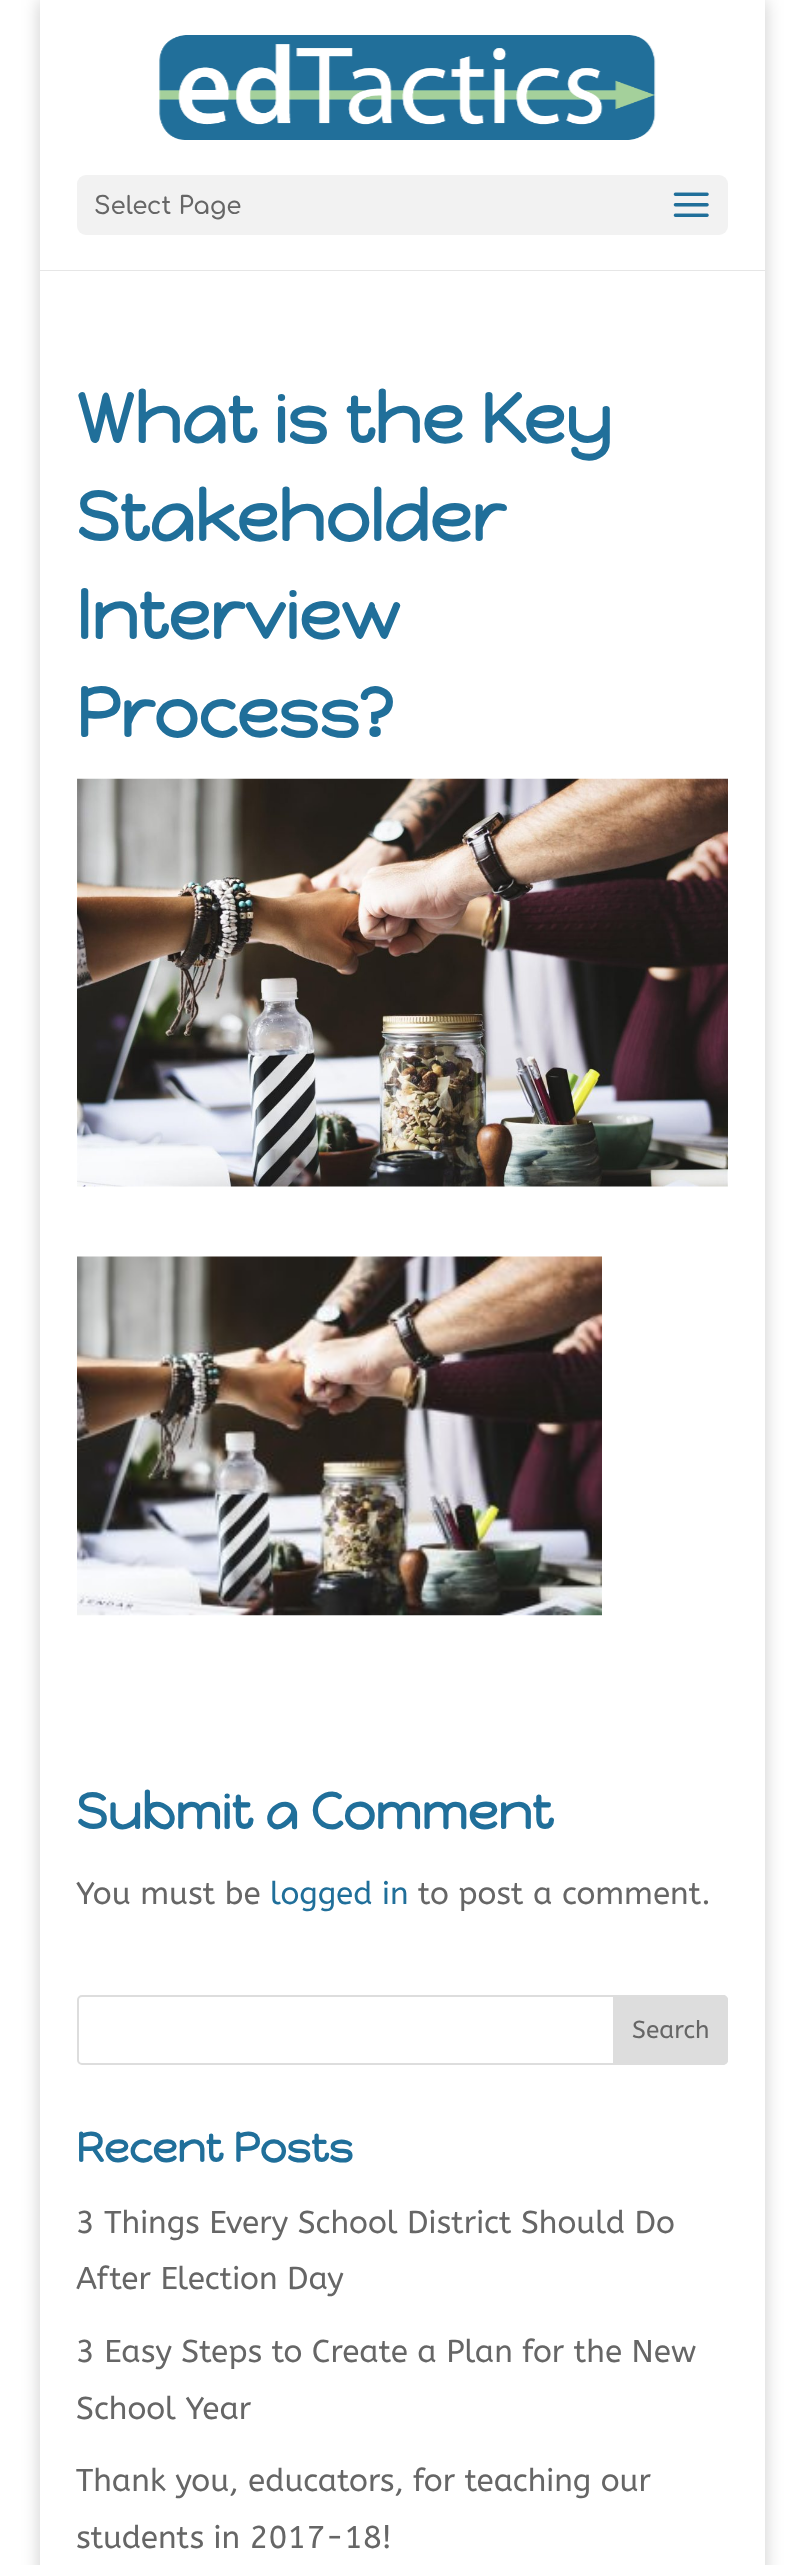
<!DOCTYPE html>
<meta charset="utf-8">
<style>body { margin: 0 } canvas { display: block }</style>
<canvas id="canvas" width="805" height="2565"></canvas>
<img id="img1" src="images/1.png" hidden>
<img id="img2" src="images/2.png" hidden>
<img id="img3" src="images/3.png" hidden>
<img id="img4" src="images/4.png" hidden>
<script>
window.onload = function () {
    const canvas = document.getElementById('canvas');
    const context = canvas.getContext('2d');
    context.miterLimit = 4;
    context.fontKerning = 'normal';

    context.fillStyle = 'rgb(255, 255, 255)';
    context.fillRect(0, 0, 805, 2565);
    context.fillStyle = 'rgba(0, 0, 0, 0.2)';
    context.filter = 'blur(9px)';
    context.beginPath();
    context.rect(40, 0, 725, 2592);
    context.fill();
    context.filter = 'none';
    context.fillStyle = 'rgb(230, 230, 230)';
    context.beginPath();
    context.moveTo(40, 2);
    context.lineTo(40, 271);
    context.lineTo(765, 271);
    context.lineTo(765, 2);
    context.lineTo(765, 270);
    context.lineTo(40, 270);
    context.closePath();
    context.fill();
    context.fillStyle = 'rgb(255, 255, 255)';
    context.fillRect(40, 0, 725, 270);
    context.drawImage(document.getElementById('img1'), 159, 35, 497, 105);
    context.fillStyle = 'rgb(242, 242, 242)';
    context.beginPath();
    context.roundRect(77, 175, 651, 60, 9);
    context.fill();
    context.drawImage(document.getElementById('img2'), 673, 192, 36, 25);
    context.fillStyle = 'rgb(255, 255, 255)';
    context.fillRect(40, 271, 725, 2294);
    context.drawImage(document.getElementById('img3'), 77, 778, 651, 409);
    context.drawImage(document.getElementById('img4'), 77, 1256, 525, 360);
    context.beginPath();
    context.roundRect(78, 1996, 649, 68, 4);
    context.strokeStyle = 'rgb(221, 221, 221)';
    context.lineWidth = 2;
    context.stroke();
    context.fillStyle = 'rgb(221, 221, 221)';
    context.beginPath();
    context.roundRect(614, 1996, 113, 68, [0, 4, 4, 0]);
    context.fill();
    context.stroke();
    context.font = '600 24.5px Comfortaa';
    context.fillStyle = 'rgb(102, 102, 102)';
    context.fillText('Select Page', 94, 214);
    context.font = 'bold 70px Happy Monkey';
    context.fillStyle = 'rgb(32, 111, 154)';
    context.fillText('What is the Key', 76, 443);
    context.fillText('Stakeholder', 76, 541);
    context.fillText('Interview', 76, 639);
    context.fillText('Process?', 76, 737);
    context.font = 'bold 50.75px Happy Monkey';
    context.fillText('Submit a Comment', 76, 1829);
    context.font = '31.5px ABeeZee';
    context.fillStyle = 'rgb(102, 102, 102)';
    context.fillText('You must be', 76, 1904);
    context.fillStyle = 'rgb(32, 111, 154)';
    context.fillText('logged in', 270, 1904);
    context.fillStyle = 'rgb(102, 102, 102)';
    context.fillText('to post a comment.', 418, 1904);
    context.font = '24.5px ABeeZee';
    context.fillText('Search', 632, 2038);
    context.font = 'bold 42px Happy Monkey';
    context.fillStyle = 'rgb(32, 111, 154)';
    context.fillText('Recent Posts', 76, 2162);
    context.font = '31.5px ABeeZee';
    context.fillStyle = 'rgb(102, 102, 102)';
    context.fillText('3 Things Every School District Should Do', 76, 2233);
    context.fillText('After Election Day', 76, 2289);
    context.fillText('3 Easy Steps to Create a Plan for the New', 76, 2362);
    context.fillText('School Year', 76, 2419);
    context.fillText('Thank you, educators, for teaching our', 76, 2491);
    context.fillText('students in 2017-18!', 76, 2548);
};
</script>
